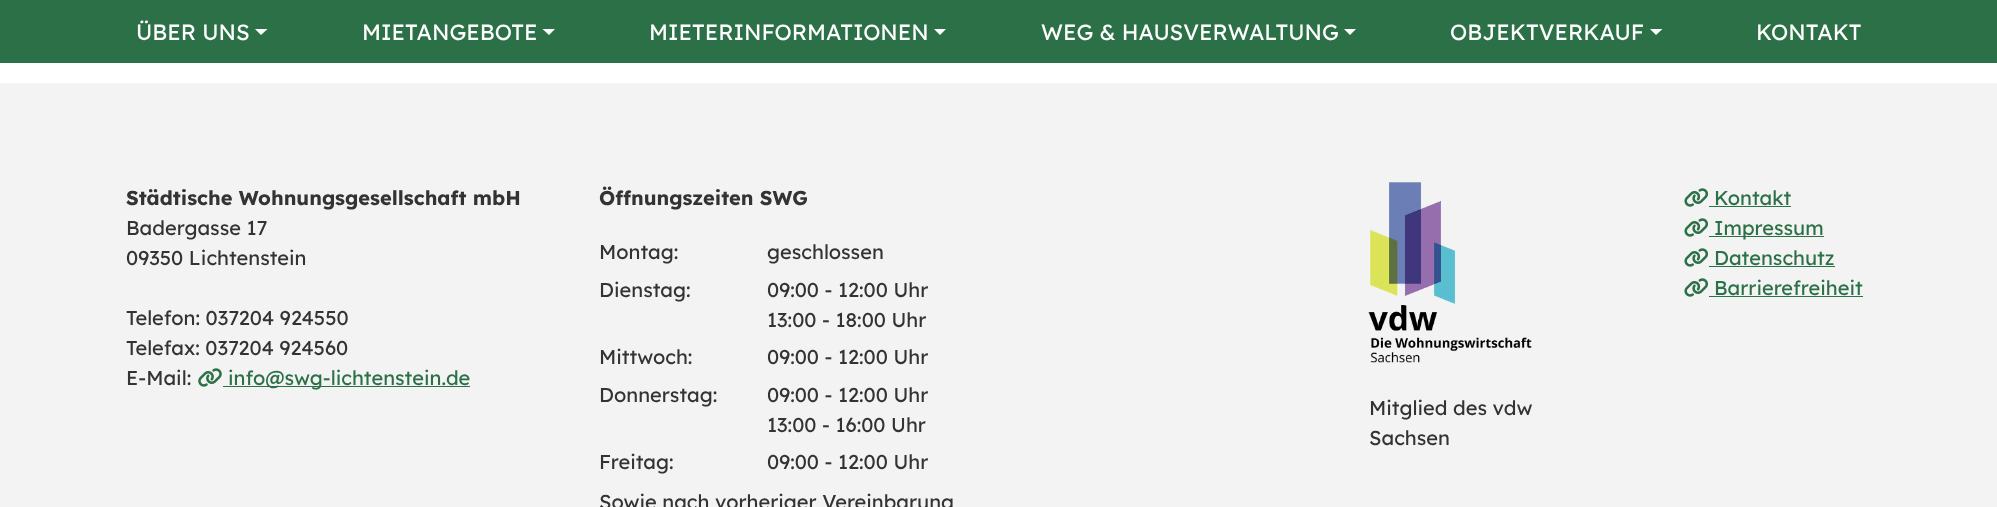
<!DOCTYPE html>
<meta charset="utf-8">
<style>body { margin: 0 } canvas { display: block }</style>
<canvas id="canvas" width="1997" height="507"></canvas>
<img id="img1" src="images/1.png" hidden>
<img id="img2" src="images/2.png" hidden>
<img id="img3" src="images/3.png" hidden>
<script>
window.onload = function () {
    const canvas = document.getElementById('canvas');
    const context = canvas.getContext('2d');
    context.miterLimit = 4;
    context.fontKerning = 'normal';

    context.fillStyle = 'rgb(255, 255, 255)';
    context.fillRect(0, 0, 1997, 507);
    context.fillStyle = 'rgb(43, 112, 70)';
    context.fillRect(0, 0, 1997, 63);
    context.fillStyle = 'rgb(255, 255, 255)';
    context.beginPath();
    context.moveTo(255, 29);
    context.lineTo(267.5, 29);
    context.lineTo(261, 35);
    context.closePath();
    context.fill();
    context.beginPath();
    context.moveTo(542.5, 29);
    context.lineTo(555, 29);
    context.lineTo(549, 35);
    context.closePath();
    context.fill();
    context.beginPath();
    context.moveTo(934, 29);
    context.lineTo(946, 29);
    context.lineTo(940, 35);
    context.closePath();
    context.fill();
    context.beginPath();
    context.moveTo(1344, 29);
    context.lineTo(1356, 29);
    context.lineTo(1350, 35);
    context.closePath();
    context.fill();
    context.beginPath();
    context.moveTo(1650, 29);
    context.lineTo(1662.5, 29);
    context.lineTo(1656, 35);
    context.closePath();
    context.fill();
    context.fillStyle = 'rgb(243, 243, 243)';
    context.fillRect(0, 83, 1997, 424);
    context.drawImage(document.getElementById('img1'), 198, 368, 24, 19);
    context.fillStyle = 'rgb(43, 112, 70)';
    context.fillRect(223, 386, 247, 1);
    context.drawImage(document.getElementById('img2'), 1684, 188, 24, 19);
    context.fillRect(1709, 206, 82, 1);
    context.drawImage(document.getElementById('img2'), 1684, 218, 24, 19);
    context.fillRect(1709, 236, 115, 1);
    context.drawImage(document.getElementById('img2'), 1684, 248, 24, 19);
    context.fillRect(1709, 266, 126, 1);
    context.drawImage(document.getElementById('img2'), 1684, 278, 24, 19);
    context.fillRect(1709, 296, 154, 1);
    context.drawImage(document.getElementById('img3'), 1368, 182, 164, 181);
    context.font = '22px Lexend';
    context.fillStyle = 'rgb(255, 255, 255)';
    context.fillText('ÜBER UNS', 136, 40);
    context.fillText('MIETANGEBOTE', 362, 40);
    context.fillText('MIETERINFORMATIONEN', 649, 40);
    context.fillText('WEG & HAUSVERWALTUNG', 1041, 40);
    context.fillText('OBJEKTVERKAUF', 1450, 40);
    context.fillText('KONTAKT', 1756, 40);
    context.font = 'bold 20px Lexend';
    context.fillStyle = 'rgb(51, 51, 51)';
    context.fillText('Städtische Wohnungsgesellschaft mbH', 126, 205);
    context.font = '20px Lexend';
    context.fillText('Badergasse 17', 126, 235);
    context.fillText('09350 Lichtenstein', 126, 265);
    context.fillText('Telefon: 037204 924550', 126, 325);
    context.fillText('Telefax: 037204 924560', 126, 355);
    context.fillText('E-Mail:', 126, 385);
    context.fillStyle = 'rgb(43, 112, 70)';
    context.fillText('info@swg-lichtenstein.de', 228, 385);
    context.font = 'bold 20px Lexend';
    context.fillStyle = 'rgb(51, 51, 51)';
    context.fillText('Öffnungszeiten SWG', 599, 205);
    context.font = '20px Lexend';
    context.fillText('Montag:', 599, 259);
    context.fillText('geschlossen', 767, 259);
    context.fillText('Dienstag:', 599, 297);
    context.fillText('09:00 - 12:00 Uhr', 767, 297);
    context.fillText('13:00 - 18:00 Uhr', 767, 327);
    context.fillText('Mittwoch:', 599, 364);
    context.fillText('09:00 - 12:00 Uhr', 767, 364);
    context.fillText('Donnerstag:', 599, 402);
    context.fillText('09:00 - 12:00 Uhr', 767, 402);
    context.fillText('13:00 - 16:00 Uhr', 767, 432);
    context.fillText('Freitag:', 599, 469);
    context.fillText('09:00 - 12:00 Uhr', 767, 469);
    context.fillText('Sowie nach vorheriger Vereinbarung', 599, 509);
    context.fillStyle = 'rgb(43, 112, 70)';
    context.fillText('Kontakt', 1714, 205);
    context.fillText('Impressum', 1714, 235);
    context.fillText('Datenschutz', 1714, 265);
    context.fillText('Barrierefreiheit', 1714, 295);
    context.fillStyle = 'rgb(51, 51, 51)';
    context.fillText('Mitglied des vdw', 1369, 415);
    context.fillText('Sachsen', 1369, 445);
};
</script>
